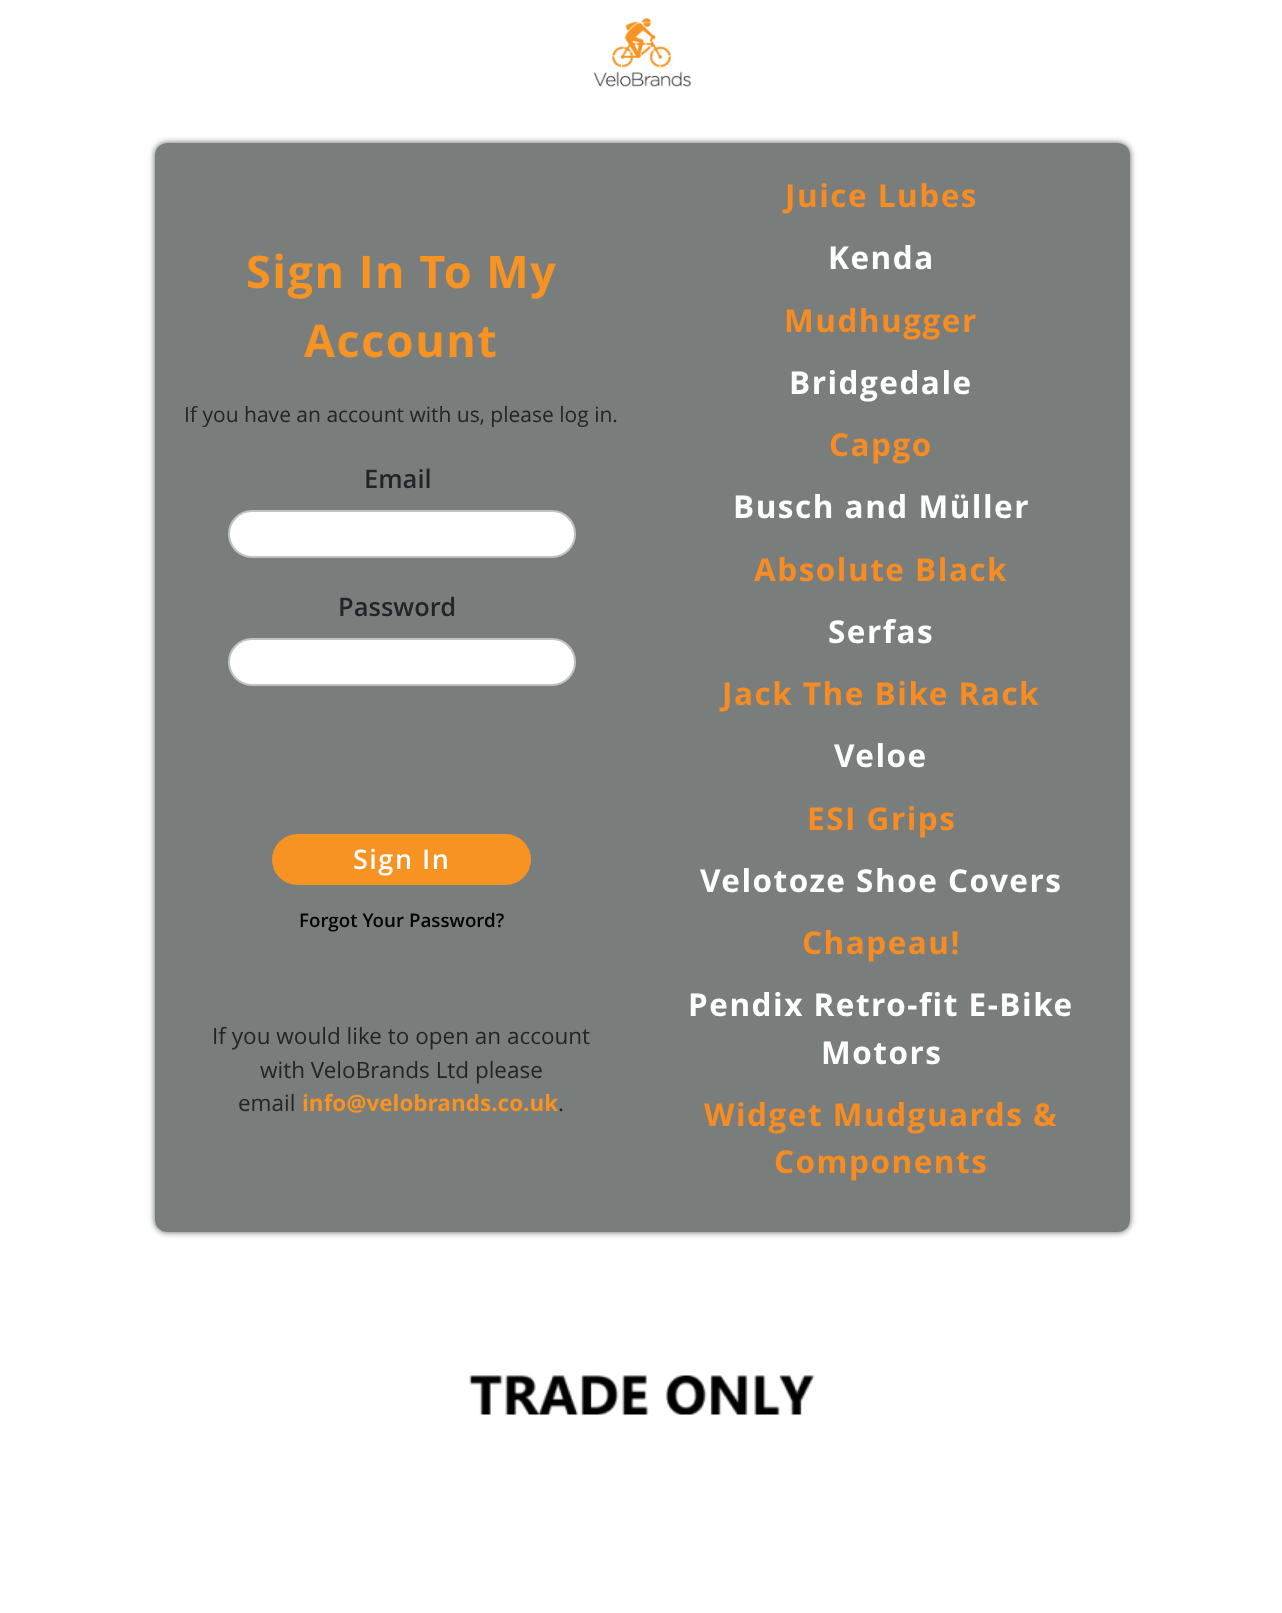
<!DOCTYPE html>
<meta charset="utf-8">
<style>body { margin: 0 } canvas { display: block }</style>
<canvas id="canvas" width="1282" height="1613"></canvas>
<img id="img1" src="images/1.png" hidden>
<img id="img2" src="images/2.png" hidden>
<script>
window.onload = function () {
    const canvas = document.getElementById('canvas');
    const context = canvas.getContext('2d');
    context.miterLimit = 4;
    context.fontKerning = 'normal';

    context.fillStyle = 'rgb(255, 255, 255)';
    context.fillRect(0, 0, 1282, 1613);
    context.drawImage(document.getElementById('img1'), 593, 18, 98, 69);
    context.save();
    context.beginPath();
    context.moveTo(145, 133);
    context.lineTo(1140, 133);
    context.lineTo(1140, 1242);
    context.lineTo(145, 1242);
    context.closePath();
    context.moveTo(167, 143);
    context.lineTo(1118, 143);
    context.bezierCurveTo(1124.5, 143, 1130, 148.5, 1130, 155);
    context.lineTo(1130, 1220);
    context.bezierCurveTo(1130, 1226.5, 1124.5, 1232, 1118, 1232);
    context.lineTo(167, 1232);
    context.bezierCurveTo(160.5, 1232, 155, 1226.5, 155, 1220);
    context.lineTo(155, 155);
    context.bezierCurveTo(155, 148.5, 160.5, 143, 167, 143);
    context.closePath();
    context.clip('evenodd');
    context.fillStyle = 'rgb(88, 94, 92)';
    context.filter = 'blur(3px)';
    context.beginPath();
    context.roundRect(155, 143, 975, 1089, 12);
    context.fill();
    context.filter = 'none';
    context.restore();
    context.fillStyle = 'rgba(88, 94, 92, 0.8)';
    context.beginPath();
    context.roundRect(155, 143, 975, 1089, 12);
    context.fill();
    context.fillStyle = 'rgb(255, 255, 255)';
    context.beginPath();
    context.roundRect(229, 511, 346, 46, 23);
    context.fill();
    context.strokeStyle = 'rgb(194, 194, 194)';
    context.lineWidth = 2;
    context.stroke();
    context.beginPath();
    context.roundRect(229, 639, 346, 46, 23);
    context.fill();
    context.stroke();
    context.fillStyle = 'rgb(246, 147, 34)';
    context.beginPath();
    context.roundRect(272, 834, 259, 51, 25.5);
    context.fill();
    context.drawImage(document.getElementById('img2'), 469, 1375, 346, 40);
    context.letterSpacing = '1.5px';
    context.font = 'bold 45px Open Sans';
    context.fillText('Sign In To My', 246, 288);
    context.fillText('Account', 304, 357);
    context.letterSpacing = '0px';
    context.font = '21px Open Sans';
    context.fillStyle = 'rgb(33, 37, 41)';
    context.fillText('If you have an account with us, please log in.', 184, 422);
    context.font = '600 25.5px Open Sans';
    context.fillText('Email', 364, 488);
    context.fillText('Password', 338, 616);
    context.letterSpacing = '1.5px';
    context.font = '600 27px Open Sans';
    context.fillStyle = 'rgb(254, 254, 254)';
    context.fillText('Sign In', 353, 869);
    context.letterSpacing = '0px';
    context.font = '600 18.75px Open Sans';
    context.fillStyle = 'rgb(0, 0, 0)';
    context.fillText('Forgot Your Password?', 299, 927);
    context.font = '22.5px Open Sans';
    context.fillStyle = 'rgb(33, 37, 41)';
    context.fillText('If you would like to open an account', 212, 1044);
    context.fillText('with VeloBrands Ltd please', 260, 1078);
    context.fillText('email', 238, 1111);
    context.font = 'bold 22.5px Open Sans';
    context.fillStyle = 'rgb(246, 147, 34)';
    context.fillText('info@velobrands.co.uk', 302, 1111);
    context.font = '22.5px Open Sans';
    context.fillStyle = 'rgb(33, 37, 41)';
    context.fillText('.', 558, 1111);
    context.letterSpacing = '1.5px';
    context.font = 'bold 31.5px Open Sans';
    context.fillStyle = 'rgb(247, 140, 34)';
    context.fillText('Juice Lubes', 785, 207);
    context.fillStyle = 'rgb(254, 254, 254)';
    context.fillText('Kenda', 828, 269);
    context.fillStyle = 'rgb(247, 140, 34)';
    context.fillText('Mudhugger', 784, 332);
    context.fillStyle = 'rgb(254, 254, 254)';
    context.fillText('Bridgedale', 789, 394);
    context.fillStyle = 'rgb(247, 140, 34)';
    context.fillText('Capgo', 829, 456);
    context.fillStyle = 'rgb(254, 254, 254)';
    context.fillText('Busch and Müller', 733, 518);
    context.fillStyle = 'rgb(247, 140, 34)';
    context.fillText('Absolute Black', 754, 581);
    context.fillStyle = 'rgb(254, 254, 254)';
    context.fillText('Serfas', 828, 643);
    context.fillStyle = 'rgb(247, 140, 34)';
    context.fillText('Jack The Bike Rack', 722, 705);
    context.fillStyle = 'rgb(254, 254, 254)';
    context.fillText('Veloe', 834, 767);
    context.fillStyle = 'rgb(247, 140, 34)';
    context.fillText('ESI Grips', 807, 830);
    context.fillStyle = 'rgb(254, 254, 254)';
    context.fillText('Velotoze Shoe Covers', 700, 892);
    context.fillStyle = 'rgb(247, 140, 34)';
    context.fillText('Chapeau!', 802, 954);
    context.fillStyle = 'rgb(254, 254, 254)';
    context.fillText('Pendix Retro-fit E-Bike', 688, 1016);
    context.fillText('Motors', 821, 1064);
    context.fillStyle = 'rgb(247, 140, 34)';
    context.fillText('Widget Mudguards &', 704, 1126);
    context.fillText('Components', 774, 1173);
};
</script>
